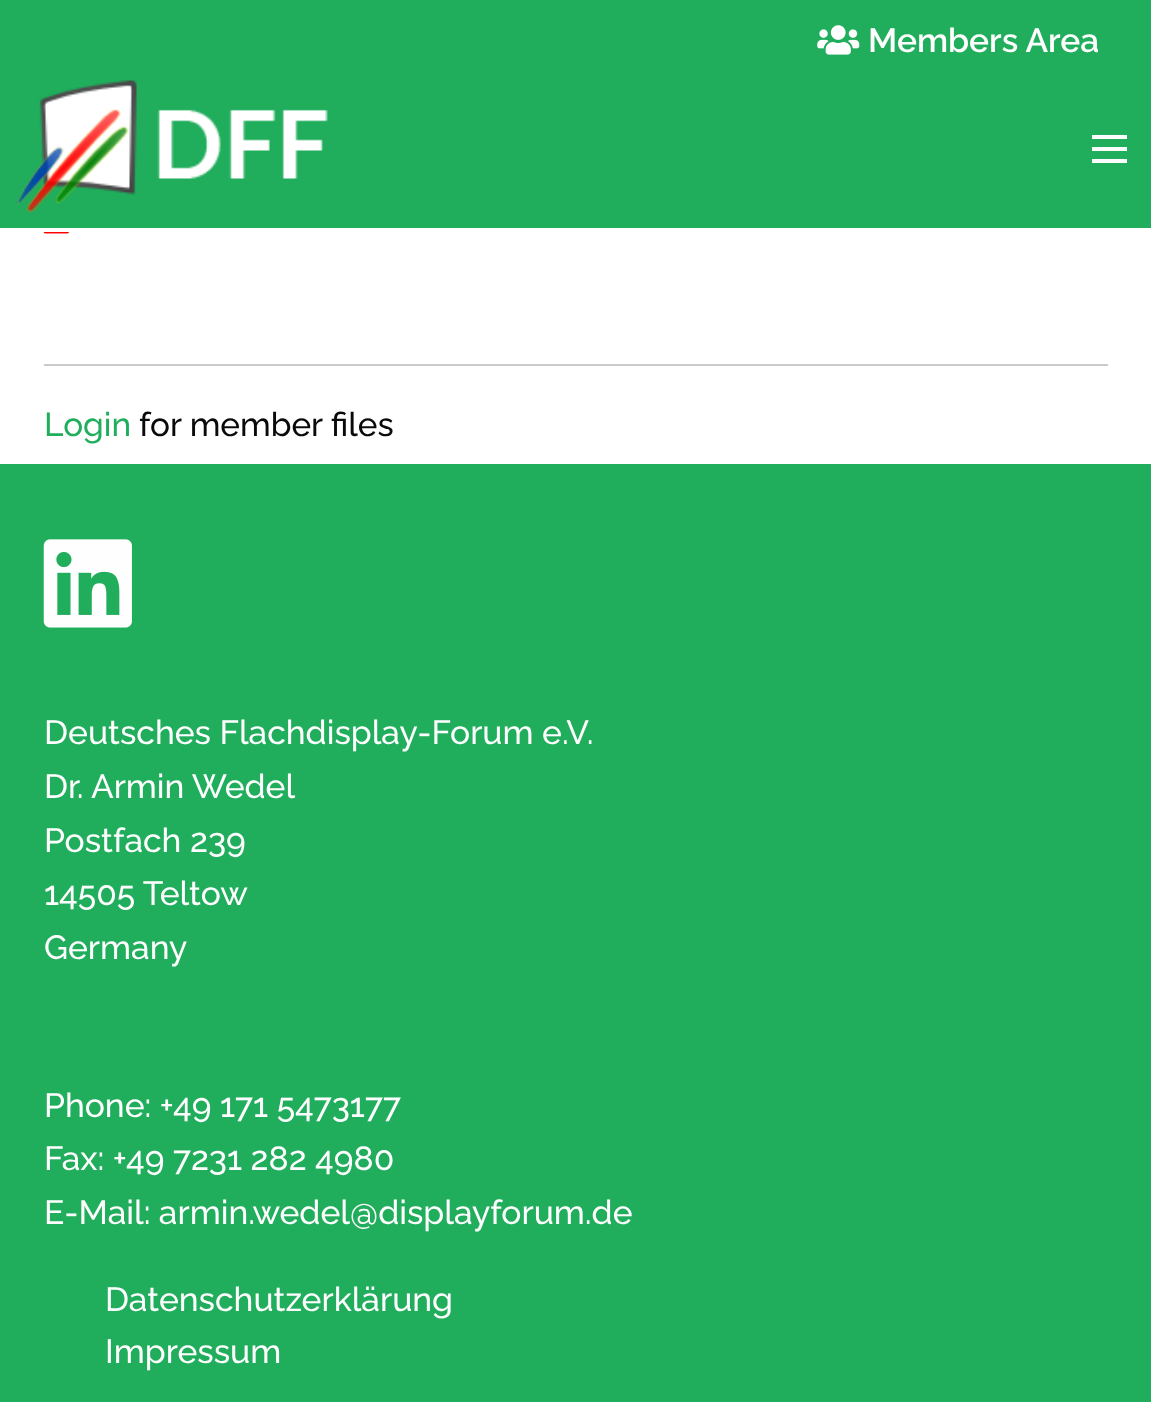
<!DOCTYPE html>
<meta charset="utf-8">
<style>body { margin: 0 } canvas { display: block }</style>
<canvas id="canvas" width="1151" height="1402"></canvas>
<img id="img1" src="images/1.png" hidden>
<img id="img2" src="images/2.png" hidden>
<img id="img3" src="images/3.png" hidden>
<img id="img4" src="images/4.png" hidden>
<script>
window.onload = function () {
    const canvas = document.getElementById('canvas');
    const context = canvas.getContext('2d');
    context.miterLimit = 4;
    context.fontKerning = 'normal';

    context.fillStyle = 'rgb(255, 255, 255)';
    context.fillRect(0, 0, 1151, 1402);
    context.fillStyle = 'rgb(32, 173, 92)';
    context.fillRect(0, 0, 1151, 228);
    context.drawImage(document.getElementById('img1'), 817, 25, 43, 30);
    context.drawImage(document.getElementById('img2'), 17, 80, 311, 132);
    context.fillStyle = 'rgb(254, 254, 254)';
    context.fillRect(1092, 159, 35, 4);
    context.fillRect(1092, 147, 35, 4);
    context.fillRect(1092, 135, 35, 4);
    context.drawImage(document.getElementById('img3'), 43, 232, 26, 2);
    context.fillStyle = 'rgb(202, 202, 202)';
    context.fillRect(44, 364, 1064, 2);
    context.fillStyle = 'rgb(32, 173, 92)';
    context.fillRect(0, 464, 1151, 938);
    context.drawImage(document.getElementById('img4'), 43, 539, 89, 89);
    context.font = '600 33.6px Raleway';
    context.fillStyle = 'rgb(254, 254, 254)';
    context.fillText('Members Area', 868, 52);
    context.font = '500 33.25px Raleway';
    context.fillStyle = 'rgb(32, 173, 92)';
    context.fillText('Login', 44, 436);
    context.fillStyle = 'rgb(10, 10, 10)';
    context.fillText('for member files', 139, 436);
    context.font = '500 33.6px Raleway';
    context.fillStyle = 'rgb(254, 254, 254)';
    context.fillText('Deutsches Flachdisplay-Forum e.V.', 44, 744);
    context.fillText('Dr. Armin Wedel', 44, 798);
    context.fillText('Postfach 239', 44, 852);
    context.fillText('14505 Teltow', 44, 905);
    context.fillText('Germany', 44, 959);
    context.fillText('Phone: +49 171 5473177', 44, 1117);
    context.fillText('Fax: +49 7231 282 4980', 44, 1170);
    context.fillText('E-Mail: armin.wedel@displayforum.de', 44, 1224);
    context.fillText('Datenschutzerklärung', 105, 1311);
    context.fillText('Impressum', 105, 1363);
};
</script>
